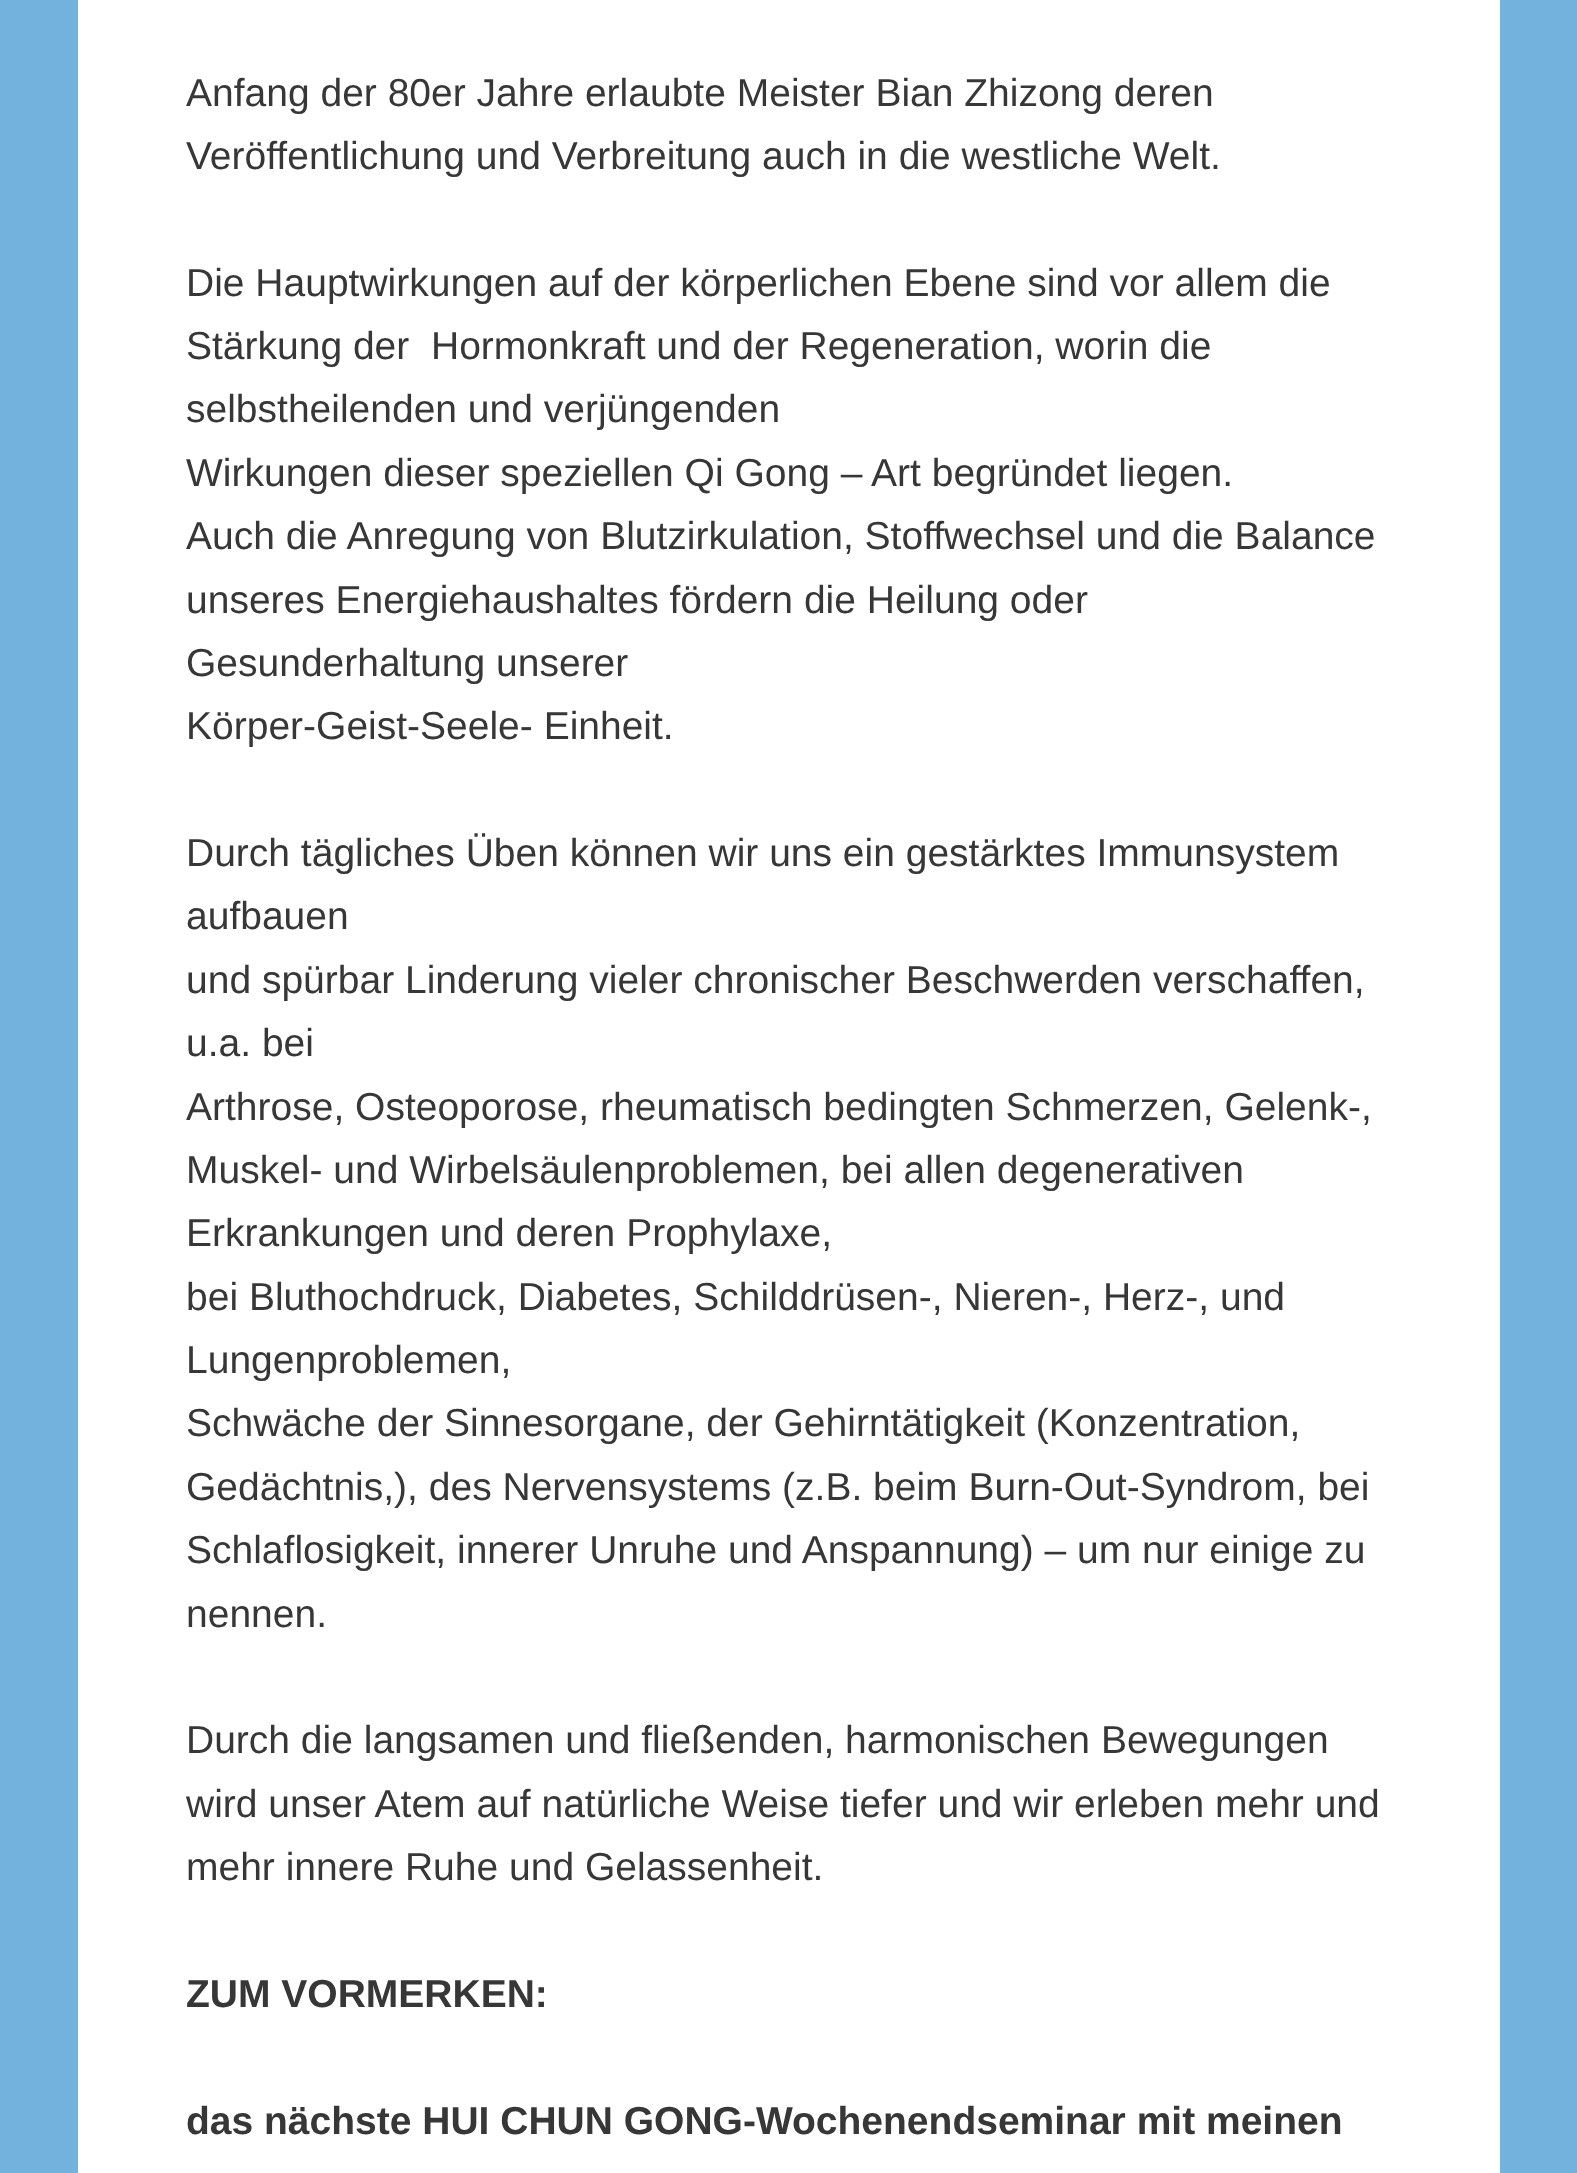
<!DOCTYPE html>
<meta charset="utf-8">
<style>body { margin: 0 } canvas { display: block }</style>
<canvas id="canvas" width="1577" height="2173"></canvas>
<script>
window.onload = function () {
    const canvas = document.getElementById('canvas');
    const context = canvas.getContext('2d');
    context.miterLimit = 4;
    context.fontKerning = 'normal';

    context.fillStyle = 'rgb(114, 178, 221)';
    context.fillRect(0, 0, 1577, 2173);
    context.fillStyle = 'rgb(255, 255, 255)';
    context.fillRect(78, 0, 1422, 2173);
    context.font = '39px Liberation Sans';
    context.fillStyle = 'rgb(55, 55, 55)';
    context.fillText('Anfang der 80er Jahre erlaubte Meister Bian Zhizong deren', 186, 106);
    context.fillText('Veröffentlichung und Verbreitung auch in die westliche Welt.', 186, 169);
    context.fillText('Die Hauptwirkungen auf der körperlichen Ebene sind vor allem die', 186, 296);
    context.fillText('Stärkung der  Hormonkraft und der Regeneration, worin die', 186, 359);
    context.fillText('selbstheilenden und verjüngenden', 186, 422);
    context.fillText('Wirkungen dieser speziellen Qi Gong – Art begründet liegen.', 186, 486);
    context.fillText('Auch die Anregung von Blutzirkulation, Stoffwechsel und die Balance', 186, 549);
    context.fillText('unseres Energiehaushaltes fördern die Heilung oder', 186, 613);
    context.fillText('Gesunderhaltung unserer', 186, 676);
    context.fillText('Körper-Geist-Seele- Einheit.', 186, 739);
    context.fillText('Durch tägliches Üben können wir uns ein gestärktes Immunsystem', 186, 866);
    context.fillText('aufbauen', 186, 929);
    context.fillText('und spürbar Linderung vieler chronischer Beschwerden verschaffen,', 186, 993);
    context.fillText('u.a. bei', 186, 1056);
    context.fillText('Arthrose, Osteoporose, rheumatisch bedingten Schmerzen, Gelenk-,', 186, 1120);
    context.fillText('Muskel- und Wirbelsäulenproblemen, bei allen degenerativen', 186, 1183);
    context.fillText('Erkrankungen und deren Prophylaxe,', 186, 1246);
    context.fillText('bei Bluthochdruck, Diabetes, Schilddrüsen-, Nieren-, Herz-, und', 186, 1310);
    context.fillText('Lungenproblemen,', 186, 1373);
    context.fillText('Schwäche der Sinnesorgane, der Gehirntätigkeit (Konzentration,', 186, 1436);
    context.fillText('Gedächtnis,), des Nervensystems (z.B. beim Burn-Out-Syndrom, bei', 186, 1500);
    context.fillText('Schlaflosigkeit, innerer Unruhe und Anspannung) – um nur einige zu', 186, 1563);
    context.fillText('nennen.', 186, 1627);
    context.fillText('Durch die langsamen und fließenden, harmonischen Bewegungen', 186, 1753);
    context.fillText('wird unser Atem auf natürliche Weise tiefer und wir erleben mehr und', 186, 1817);
    context.fillText('mehr innere Ruhe und Gelassenheit.', 186, 1880);
    context.font = 'bold 39px Liberation Sans';
    context.fillText('ZUM VORMERKEN:', 186, 2007);
    context.fillText('das nächste HUI CHUN GONG-Wochenendseminar mit meinen', 186, 2134);
};
</script>
